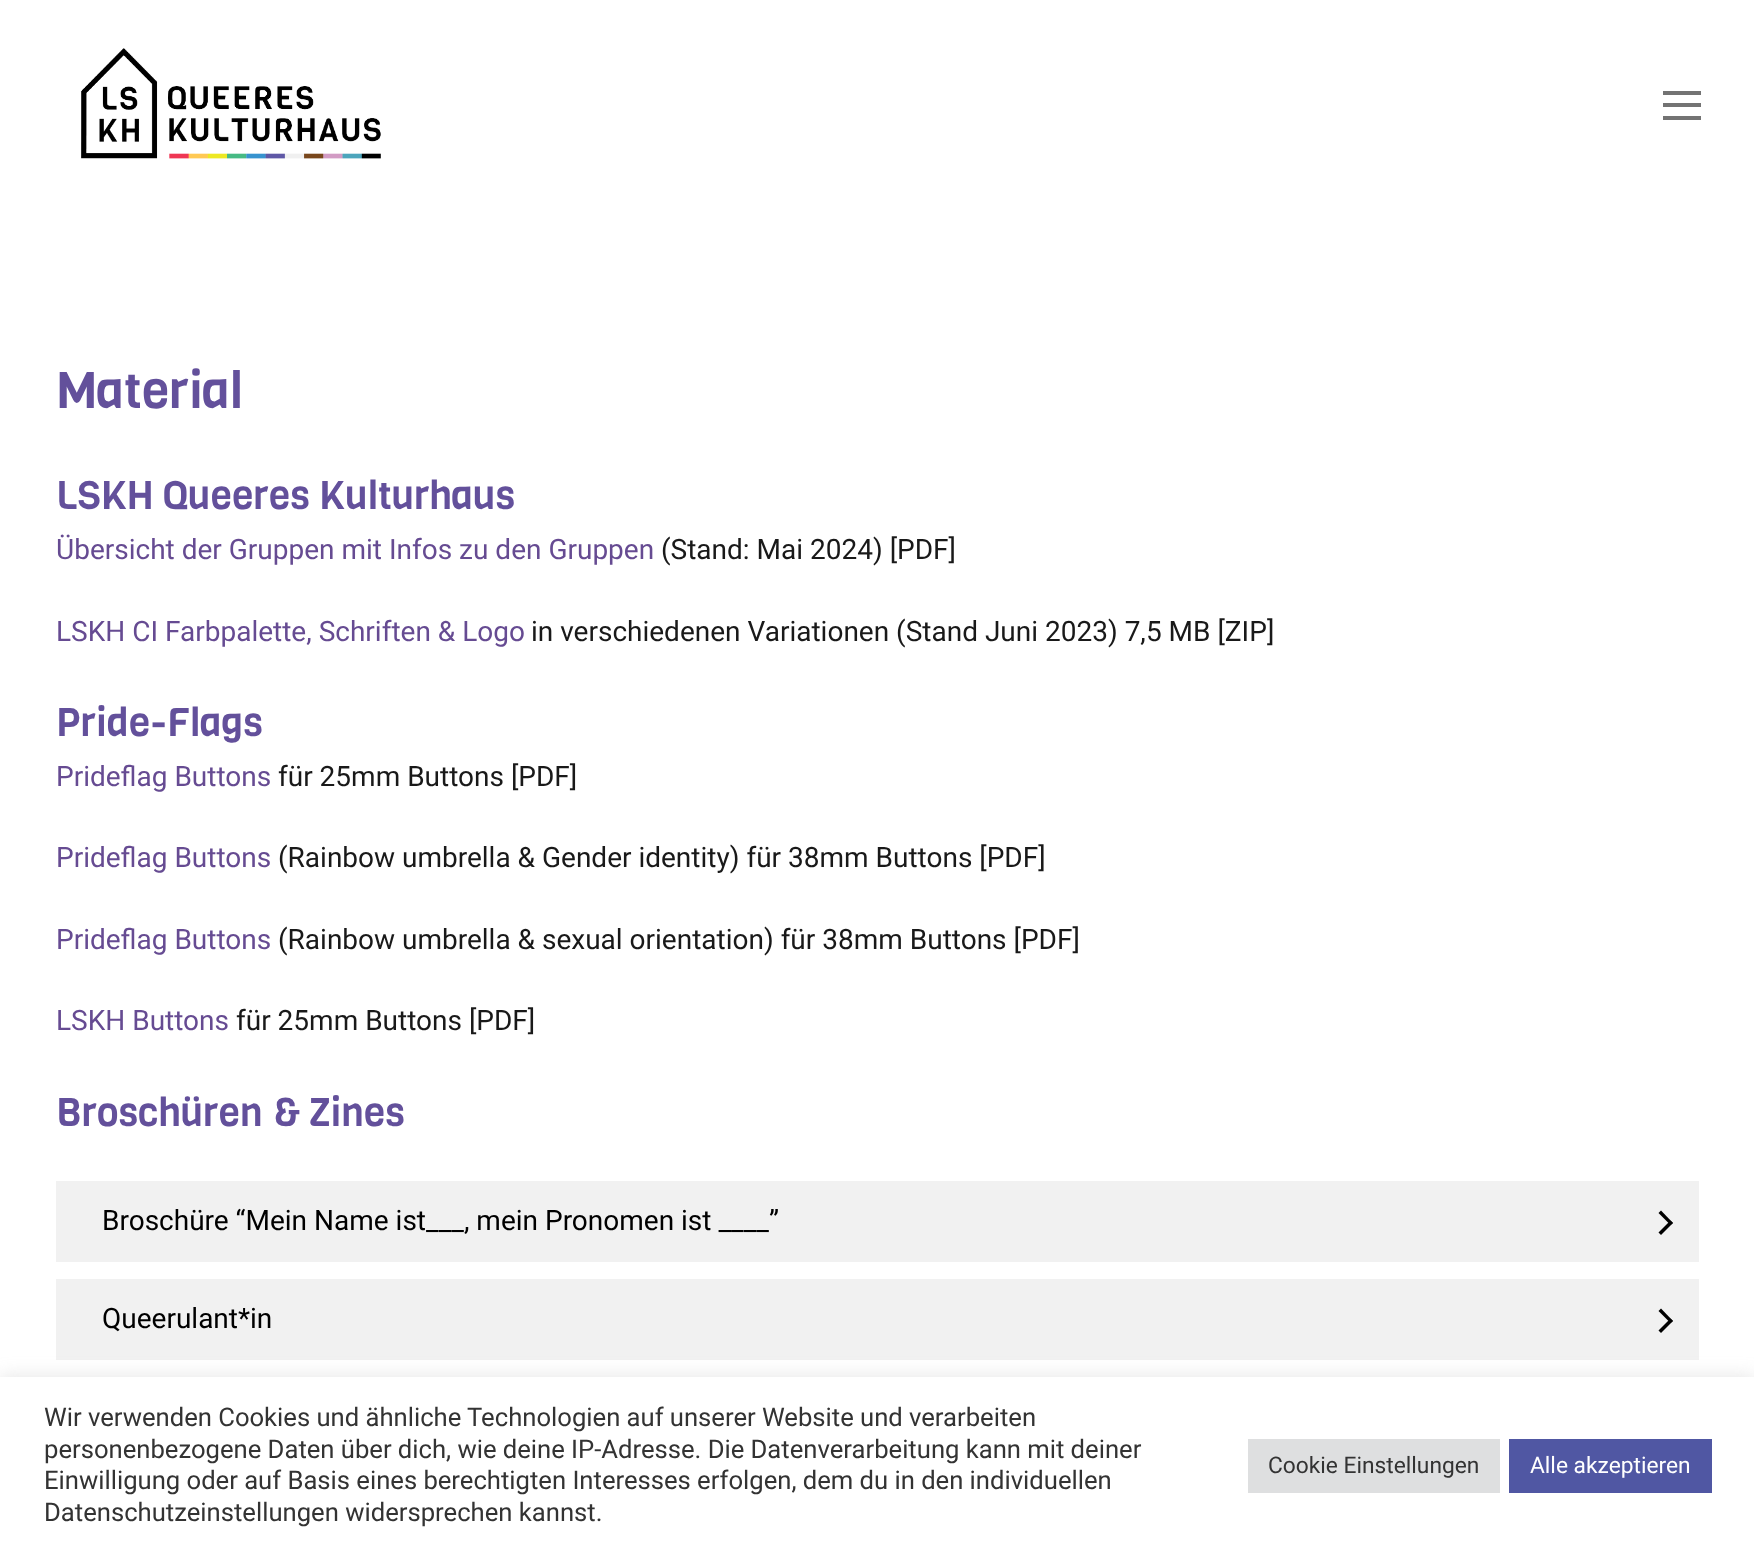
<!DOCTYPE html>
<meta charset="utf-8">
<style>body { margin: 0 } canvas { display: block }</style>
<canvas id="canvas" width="1754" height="1552"></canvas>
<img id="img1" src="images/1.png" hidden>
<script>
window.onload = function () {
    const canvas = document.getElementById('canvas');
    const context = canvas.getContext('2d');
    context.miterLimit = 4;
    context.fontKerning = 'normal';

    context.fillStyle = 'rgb(255, 255, 255)';
    context.fillRect(0, 0, 1754, 1552);
    context.drawImage(document.getElementById('img1'), 81, 48, 300, 111);
    context.fillStyle = 'rgb(115, 115, 115)';
    context.fillRect(1663, 103, 38, 4);
    context.fillRect(1663, 91, 38, 4);
    context.fillRect(1663, 116, 38, 4);
    context.strokeStyle = 'rgb(241, 241, 241)';
    context.lineWidth = 2;
    context.strokeRect(57, 1182, 1641, 79);
    context.fillStyle = 'rgb(241, 241, 241)';
    context.fillRect(58, 1183, 1639, 77);
    context.fillStyle = 'rgb(0, 0, 0)';
    context.beginPath();
    context.moveTo(1658.5, 1213);
    context.lineTo(1661, 1210.5);
    context.lineTo(1673, 1223);
    context.lineTo(1670.5, 1225);
    context.closePath();
    context.fill();
    context.beginPath();
    context.moveTo(1658.5, 1232.5);
    context.lineTo(1670.5, 1220.5);
    context.lineTo(1673, 1223);
    context.lineTo(1661, 1235);
    context.closePath();
    context.fill();
    context.strokeRect(57, 1280, 1641, 79);
    context.fillStyle = 'rgb(241, 241, 241)';
    context.fillRect(58, 1281, 1639, 77);
    context.fillStyle = 'rgb(0, 0, 0)';
    context.beginPath();
    context.moveTo(1658.5, 1311);
    context.lineTo(1661, 1308.5);
    context.lineTo(1673, 1321);
    context.lineTo(1670.5, 1323);
    context.closePath();
    context.fill();
    context.beginPath();
    context.moveTo(1658.5, 1330.5);
    context.lineTo(1670.5, 1318.5);
    context.lineTo(1673, 1321);
    context.lineTo(1661, 1333);
    context.closePath();
    context.fill();
    context.fillStyle = 'rgba(172, 171, 171, 0.3)';
    context.filter = 'blur(9px)';
    context.beginPath();
    context.rect(0, 1376, 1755, 175);
    context.fill();
    context.filter = 'none';
    context.fillStyle = 'rgb(255, 255, 255)';
    context.fillRect(0, 1377, 1754, 175);
    context.fillStyle = 'rgb(222, 223, 224)';
    context.fillRect(1248, 1439, 252, 54);
    context.fillStyle = 'rgb(80, 87, 163)';
    context.fillRect(1509, 1439, 203, 54);
    context.font = '50.5px viga';
    context.fillStyle = 'rgb(99, 80, 155)';
    context.fillText('Material', 56, 408);
    context.font = '39.25px viga';
    context.fillText('LSKH Queeres Kulturhaus', 56, 509);
    context.font = '28px Roboto';
    context.fillStyle = 'rgb(102, 75, 146)';
    context.fillText('Übersicht der Gruppen mit Infos zu den Gruppen', 56, 559);
    context.fillStyle = 'rgb(25, 25, 25)';
    context.fillText('(Stand: Mai 2024) [PDF]', 661, 559);
    context.fillStyle = 'rgb(102, 75, 146)';
    context.fillText('LSKH CI Farbpalette, Schriften & Logo', 56, 641);
    context.fillStyle = 'rgb(25, 25, 25)';
    context.fillText('in verschiedenen Variationen (Stand Juni 2023) 7,5 MB [ZIP]', 531, 641);
    context.font = '39.25px viga';
    context.fillStyle = 'rgb(99, 80, 155)';
    context.fillText('Pride-Flags', 56, 736);
    context.font = '28px Roboto';
    context.fillStyle = 'rgb(102, 75, 146)';
    context.fillText('Prideflag Buttons', 56, 786);
    context.fillStyle = 'rgb(25, 25, 25)';
    context.fillText('für 25mm Buttons [PDF]', 278, 786);
    context.fillStyle = 'rgb(102, 75, 146)';
    context.fillText('Prideflag Buttons', 56, 867);
    context.fillStyle = 'rgb(25, 25, 25)';
    context.fillText('(Rainbow umbrella & Gender identity) für 38mm Buttons [PDF]', 278, 867);
    context.fillStyle = 'rgb(102, 75, 146)';
    context.fillText('Prideflag Buttons', 56, 949);
    context.fillStyle = 'rgb(25, 25, 25)';
    context.fillText('(Rainbow umbrella & sexual orientation) für 38mm Buttons [PDF]', 278, 949);
    context.fillStyle = 'rgb(102, 75, 146)';
    context.fillText('LSKH Buttons', 56, 1030);
    context.fillStyle = 'rgb(25, 25, 25)';
    context.fillText('für 25mm Buttons [PDF]', 236, 1030);
    context.font = '39.25px viga';
    context.fillStyle = 'rgb(99, 80, 155)';
    context.fillText('Broschüren & Zines', 56, 1126);
    context.font = '28px Roboto';
    context.fillStyle = 'rgb(0, 0, 0)';
    context.fillText('Broschüre “Mein Name ist___, mein Pronomen ist ____”', 102, 1230);
    context.fillText('Queerulant*in', 102, 1328);
    context.wordSpacing = '-0.1px';
    context.font = '25.65px Roboto';
    context.fillStyle = 'rgb(51, 51, 51)';
    context.fillText('Wir verwenden Cookies und ähnliche Technologien auf unserer Website und verarbeiten', 44, 1426);
    context.fillText('personenbezogene Daten über dich, wie deine IP-Adresse. Die Datenverarbeitung kann mit deiner', 44, 1458);
    context.fillText('Einwilligung oder auf Basis eines berechtigten Interesses erfolgen, dem du in den individuellen', 44, 1489);
    context.wordSpacing = '0px';
    context.fillText('Datenschutzeinstellungen widersprechen kannst.', 44, 1521);
    context.font = '22.75px Roboto';
    context.fillText('Cookie Einstellungen', 1268, 1473);
    context.fillStyle = 'rgb(255, 255, 255)';
    context.fillText('Alle akzeptieren', 1530, 1473);
};
</script>
